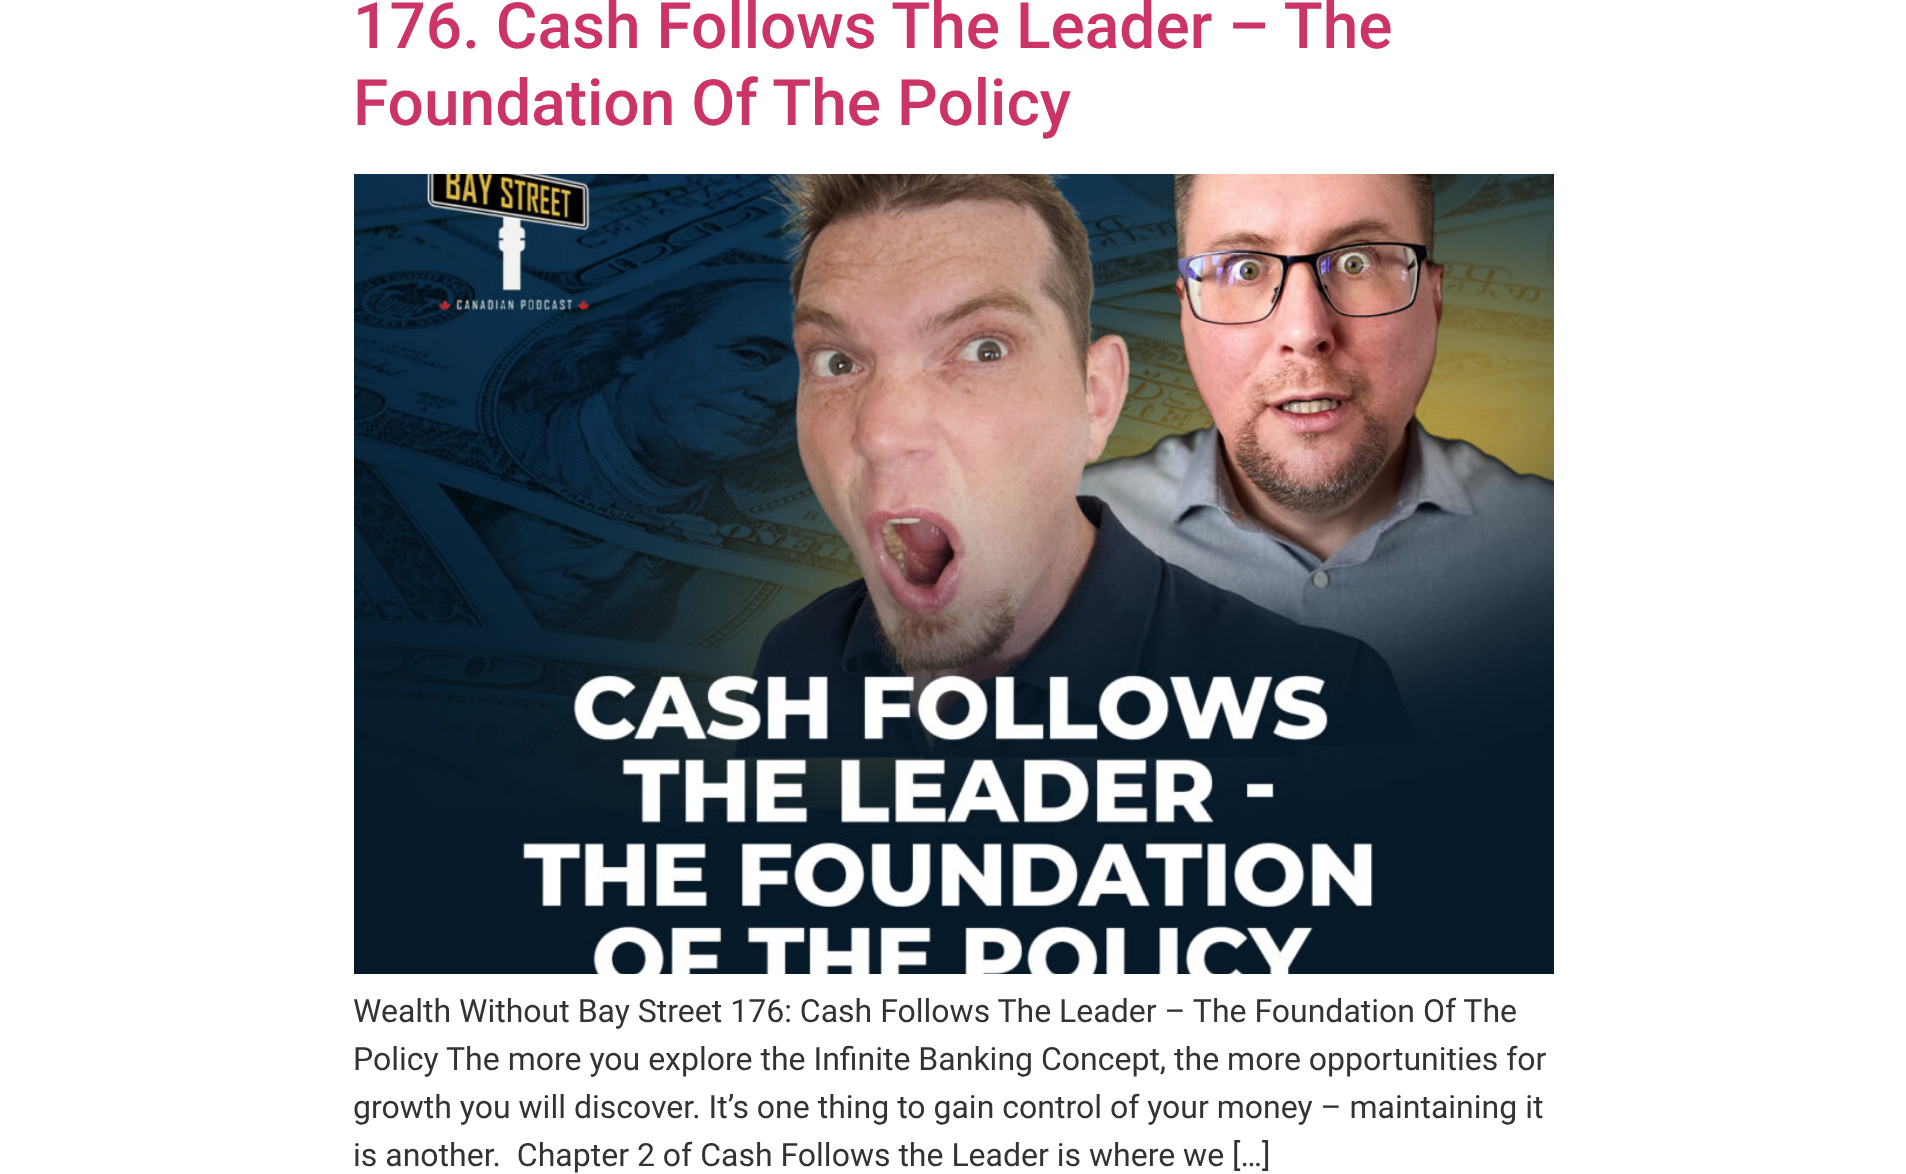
<!DOCTYPE html>
<meta charset="utf-8">
<style>body { margin: 0 } canvas { display: block }</style>
<canvas id="canvas" width="1906" height="1174"></canvas>
<img id="img1" src="images/1.png" hidden>
<script>
window.onload = function () {
    const canvas = document.getElementById('canvas');
    const context = canvas.getContext('2d');
    context.miterLimit = 4;
    context.fontKerning = 'normal';

    context.fillStyle = 'rgb(255, 255, 255)';
    context.fillRect(0, 0, 1906, 1174);
    context.drawImage(document.getElementById('img1'), 354, 174, 1200, 800);
    context.font = '500 64px Roboto';
    context.fillStyle = 'rgb(204, 51, 102)';
    context.fillText('176. Cash Follows The Leader – The', 353, 48);
    context.fillText('Foundation Of The Policy', 353, 125);
    context.font = '32px Roboto';
    context.fillStyle = 'rgb(51, 51, 51)';
    context.fillText('Wealth Without Bay Street 176: Cash Follows The Leader – The Foundation Of The', 353, 1022);
    context.fillText('Policy The more you explore the Infinite Banking Concept, the more opportunities for', 353, 1070);
    context.fillText('growth you will discover. It’s one thing to gain control of your money – maintaining it', 353, 1118);
    context.fillText('is another.  Chapter 2 of Cash Follows the Leader is where we […]', 353, 1166);
};
</script>
